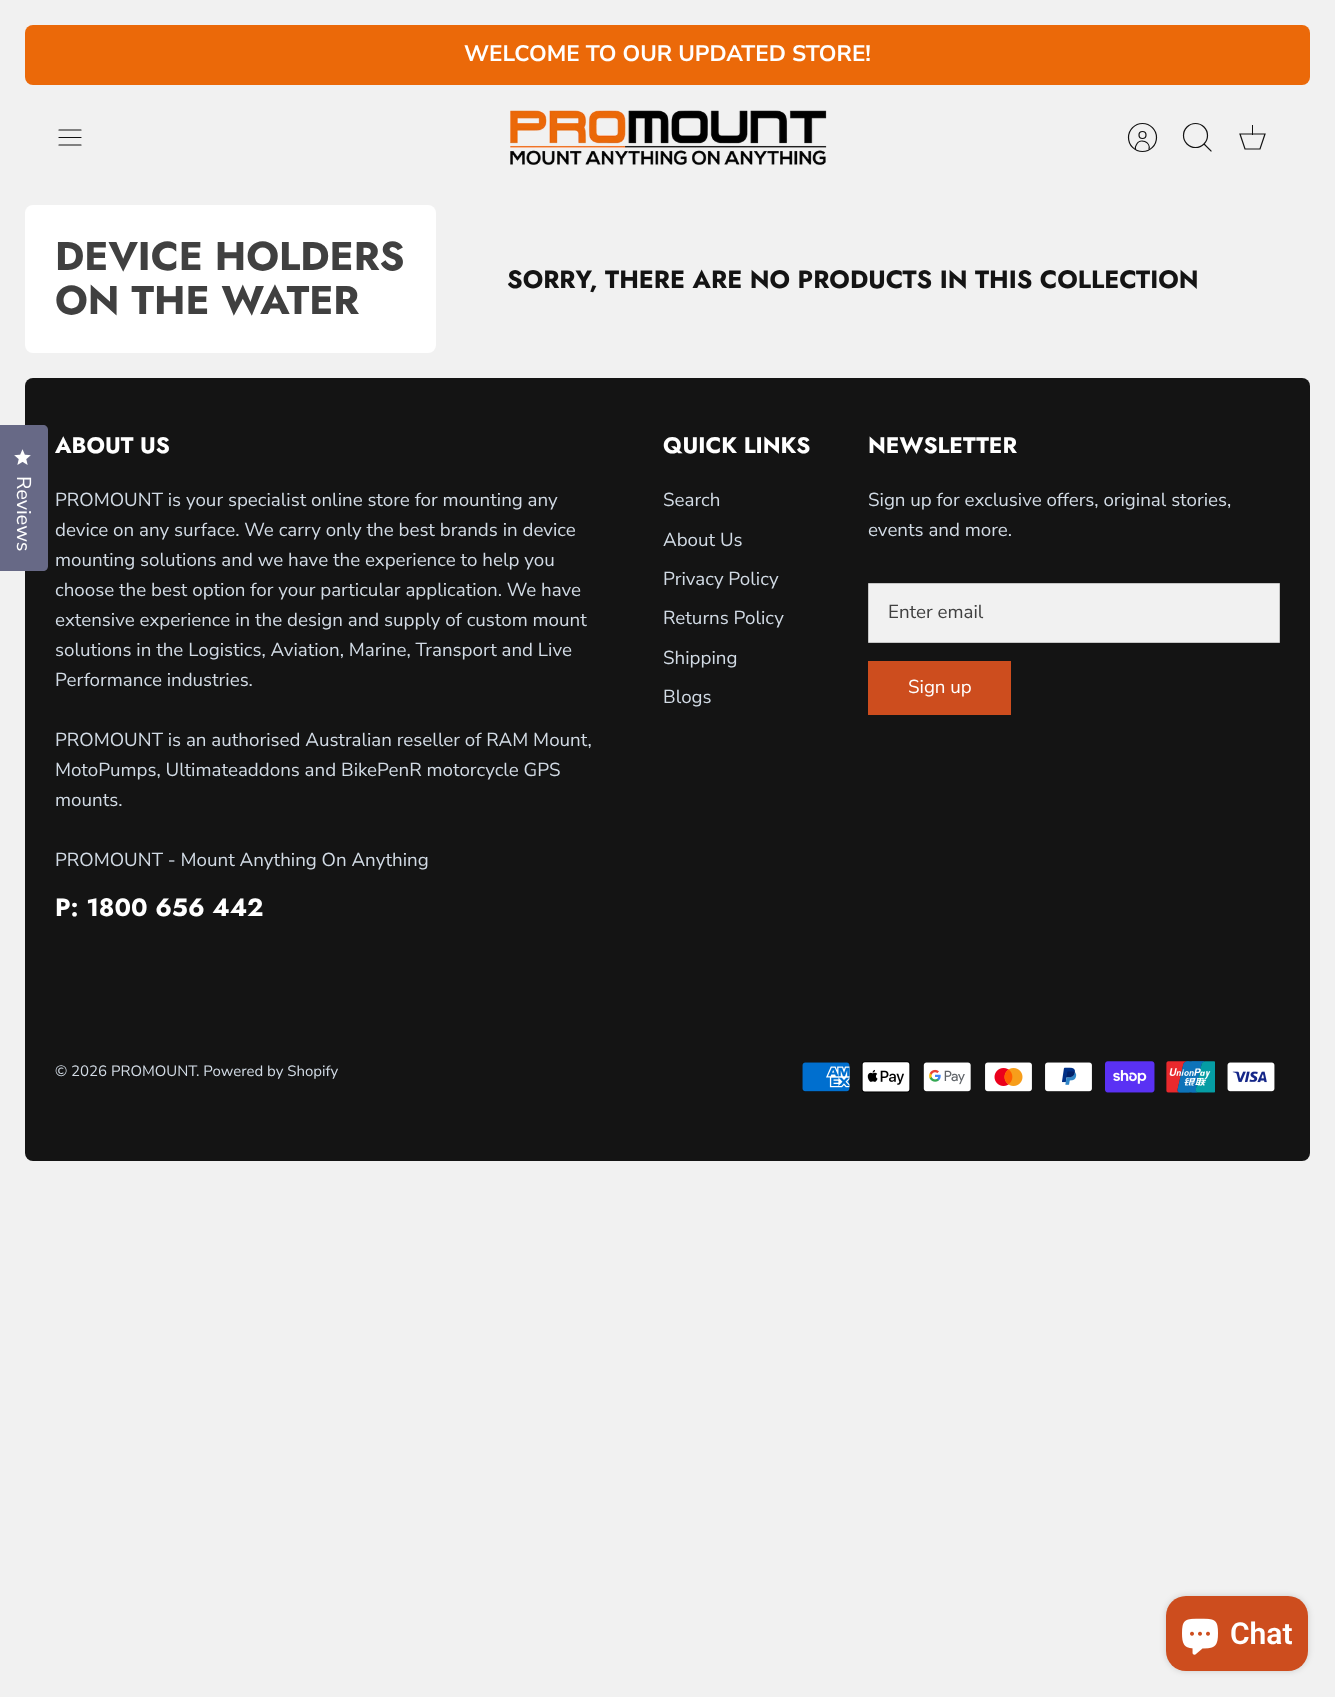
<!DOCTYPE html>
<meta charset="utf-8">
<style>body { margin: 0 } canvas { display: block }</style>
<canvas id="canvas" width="1335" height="1697"></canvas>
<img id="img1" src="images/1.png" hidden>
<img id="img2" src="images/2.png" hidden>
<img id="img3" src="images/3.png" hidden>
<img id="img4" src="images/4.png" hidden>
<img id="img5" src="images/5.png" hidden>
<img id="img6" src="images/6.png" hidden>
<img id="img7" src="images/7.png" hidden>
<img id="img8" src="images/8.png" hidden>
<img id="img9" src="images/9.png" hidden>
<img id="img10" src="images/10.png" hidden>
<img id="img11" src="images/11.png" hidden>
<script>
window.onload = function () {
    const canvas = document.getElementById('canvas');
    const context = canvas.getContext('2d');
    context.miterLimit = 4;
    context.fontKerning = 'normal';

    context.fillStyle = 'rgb(241, 241, 241)';
    context.fillRect(0, 0, 1335, 1697);
    context.fillStyle = 'rgb(235, 105, 9)';
    context.beginPath();
    context.roundRect(25, 25, 1285, 60, 8);
    context.fill();
    context.beginPath();
    context.moveTo(59, 137.5);
    context.lineTo(81, 137.5);
    context.moveTo(59, 130);
    context.lineTo(81, 130);
    context.moveTo(59, 145);
    context.lineTo(81, 145);
    context.strokeStyle = 'rgb(18, 18, 18)';
    context.lineWidth = 1.2;
    context.lineCap = 'round';
    context.lineJoin = 'round';
    context.stroke();
    context.drawImage(document.getElementById('img1'), 510, 110, 317, 55);
    context.beginPath();
    context.moveTo(1149, 149.5);
    context.bezierCurveTo(1151, 142, 1140, 137.5, 1136.5, 144.5);
    context.bezierCurveTo(1135.5, 146, 1135, 148, 1135.5, 149.5);
    context.lineCap = 'butt';
    context.lineJoin = 'miter';
    context.stroke();
    context.beginPath();
    context.arc(1142.5, 135, 3.5, 0, 2 * Math.PI);
    context.stroke();
    context.beginPath();
    context.arc(1142.5, 137.5, 14, 0, 2 * Math.PI);
    context.stroke();
    context.beginPath();
    context.arc(1195.5, 135.5, 12, 0, 2 * Math.PI);
    context.stroke();
    context.beginPath();
    context.moveTo(1204.5, 144.5);
    context.lineTo(1211, 151);
    context.lineCap = 'square';
    context.stroke();
    context.beginPath();
    context.moveTo(1240, 134);
    context.lineTo(1265, 134);
    context.lineTo(1260, 149);
    context.lineTo(1245, 149);
    context.closePath();
    context.lineCap = 'butt';
    context.stroke();
    context.fillStyle = 'rgb(18, 18, 18)';
    context.fillRect(1252, 125, 1, 10);
    context.fillStyle = 'rgb(255, 255, 255)';
    context.beginPath();
    context.roundRect(25, 205, 411, 148, 8);
    context.fill();
    context.fillStyle = 'rgb(20, 20, 20)';
    context.beginPath();
    context.roundRect(25, 378, 1285, 783, 8);
    context.fill();
    context.fillStyle = 'rgb(103, 105, 134)';
    context.beginPath();
    context.moveTo(-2, 425);
    context.lineTo(43, 425);
    context.bezierCurveTo(46, 425, 48, 427, 48, 430);
    context.lineTo(48, 566);
    context.bezierCurveTo(48, 569, 46, 571, 43, 571);
    context.lineTo(-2, 571);
    context.closePath();
    context.fill();
    context.drawImage(document.getElementById('img2'), 14, 449, 17, 16);
    context.fillStyle = 'rgb(241, 241, 241)';
    context.beginPath();
    context.rect(868.5, 583.5, 411, 59);
    context.fill();
    context.strokeStyle = 'rgb(197, 197, 197)';
    context.lineWidth = 1;
    context.stroke();
    context.fillStyle = 'rgb(205, 77, 30)';
    context.fillRect(868, 661, 143, 54);
    context.drawImage(document.getElementById('img3'), 802, 1062, 48, 30);
    context.drawImage(document.getElementById('img4'), 861, 1061, 50, 32);
    context.drawImage(document.getElementById('img5'), 923, 1062, 48, 30);
    context.drawImage(document.getElementById('img6'), 985, 1062, 47, 30);
    context.drawImage(document.getElementById('img7'), 1045, 1062, 47, 30);
    context.drawImage(document.getElementById('img8'), 1105, 1061, 50, 32);
    context.drawImage(document.getElementById('img9'), 1166, 1061, 49, 32);
    context.drawImage(document.getElementById('img10'), 1227, 1062, 48, 30);
    context.fillStyle = 'rgba(0, 0, 0, 0.15)';
    context.filter = 'blur(3px)';
    context.beginPath();
    context.roundRect(1166, 1596, 142, 75, 20);
    context.fill();
    context.filter = 'none';
    context.fillStyle = 'rgb(205, 77, 30)';
    context.beginPath();
    context.roundRect(1166, 1596, 142, 75, 20);
    context.fill();
    context.drawImage(document.getElementById('img11'), 1182, 1618, 36, 37);
    context.font = 'bold 22.5px Nunito Sans';
    context.fillStyle = 'rgb(255, 255, 255)';
    context.fillText('WELCOME TO OUR UPDATED STORE!', 464, 61);
    context.font = 'bold 40px Jost';
    context.fillStyle = 'rgb(64, 64, 64)';
    context.fillText('DEVICE HOLDERS', 55, 270);
    context.fillText('ON THE WATER', 55, 314);
    context.font = 'bold 25px Jost';
    context.fillStyle = 'rgb(20, 20, 20)';
    context.fillText('SORRY, THERE ARE NO PRODUCTS IN THIS COLLECTION', 507, 288);
    context.font = '20px Nunito Sans';
    context.fillStyle = 'rgb(255, 255, 255)';
    context.save();
    context.translate(17, 476);
    context.rotate(90.1 * Math.PI / 180);
    context.fillText('Reviews', 0, 0);
    context.restore();
    context.font = 'bold 22.5px Jost';
    context.fillText('ABOUT US', 55, 453);
    context.font = '18.75px Nunito Sans';
    context.fillStyle = 'rgb(210, 219, 229)';
    context.fillText('PROMOUNT is your specialist online store for mounting any', 55, 506);
    context.fillText('device on any surface. We carry only the best brands in device', 55, 536);
    context.fillText('mounting solutions and we have the experience to help you', 55, 566);
    context.fillText('choose the best option for your particular application. We have', 55, 596);
    context.fillText('extensive experience in the design and supply of custom mount', 55, 626);
    context.fillText('solutions in the Logistics, Aviation, Marine, Transport and Live', 55, 656);
    context.fillText('Performance industries.', 55, 686);
    context.fillText('PROMOUNT is an authorised Australian reseller of RAM Mount,', 55, 746);
    context.fillText('MotoPumps, Ultimateaddons and BikePenR motorcycle GPS', 55, 776);
    context.fillText('mounts.', 55, 806);
    context.fillText('PROMOUNT - Mount Anything On Anything', 55, 866);
    context.font = 'bold 25px Jost';
    context.fillStyle = 'rgb(255, 255, 255)';
    context.fillText('P: 1800 656 442', 55, 916);
    context.font = 'bold 22.5px Jost';
    context.fillText('QUICK LINKS', 663, 453);
    context.font = '18.75px Nunito Sans';
    context.fillStyle = 'rgb(210, 219, 229)';
    context.fillText('Search', 663, 506);
    context.fillText('About Us', 663, 546);
    context.fillText('Privacy Policy', 663, 585);
    context.fillText('Returns Policy', 663, 624);
    context.fillText('Shipping', 663, 664);
    context.fillText('Blogs', 663, 703);
    context.font = 'bold 22.5px Jost';
    context.fillStyle = 'rgb(255, 255, 255)';
    context.fillText('NEWSLETTER', 868, 453);
    context.font = '18.75px Nunito Sans';
    context.fillStyle = 'rgb(210, 219, 229)';
    context.fillText('Sign up for exclusive offers, original stories,', 868, 506);
    context.fillText('events and more.', 868, 536);
    context.fillStyle = 'rgb(64, 64, 64)';
    context.fillText('Enter email', 888, 618);
    context.fillStyle = 'rgb(255, 255, 255)';
    context.fillText('Sign up', 908, 693);
    context.font = '15px Nunito Sans';
    context.fillStyle = 'rgb(210, 219, 229)';
    context.fillText('© 2026 PROMOUNT', 55, 1076);
    context.fillText('. Powered by Shopify', 196, 1076);
    context.font = '600 30px Roboto';
    context.fillStyle = 'rgb(255, 255, 255)';
    context.fillText('Chat', 1230, 1644);
};
</script>
